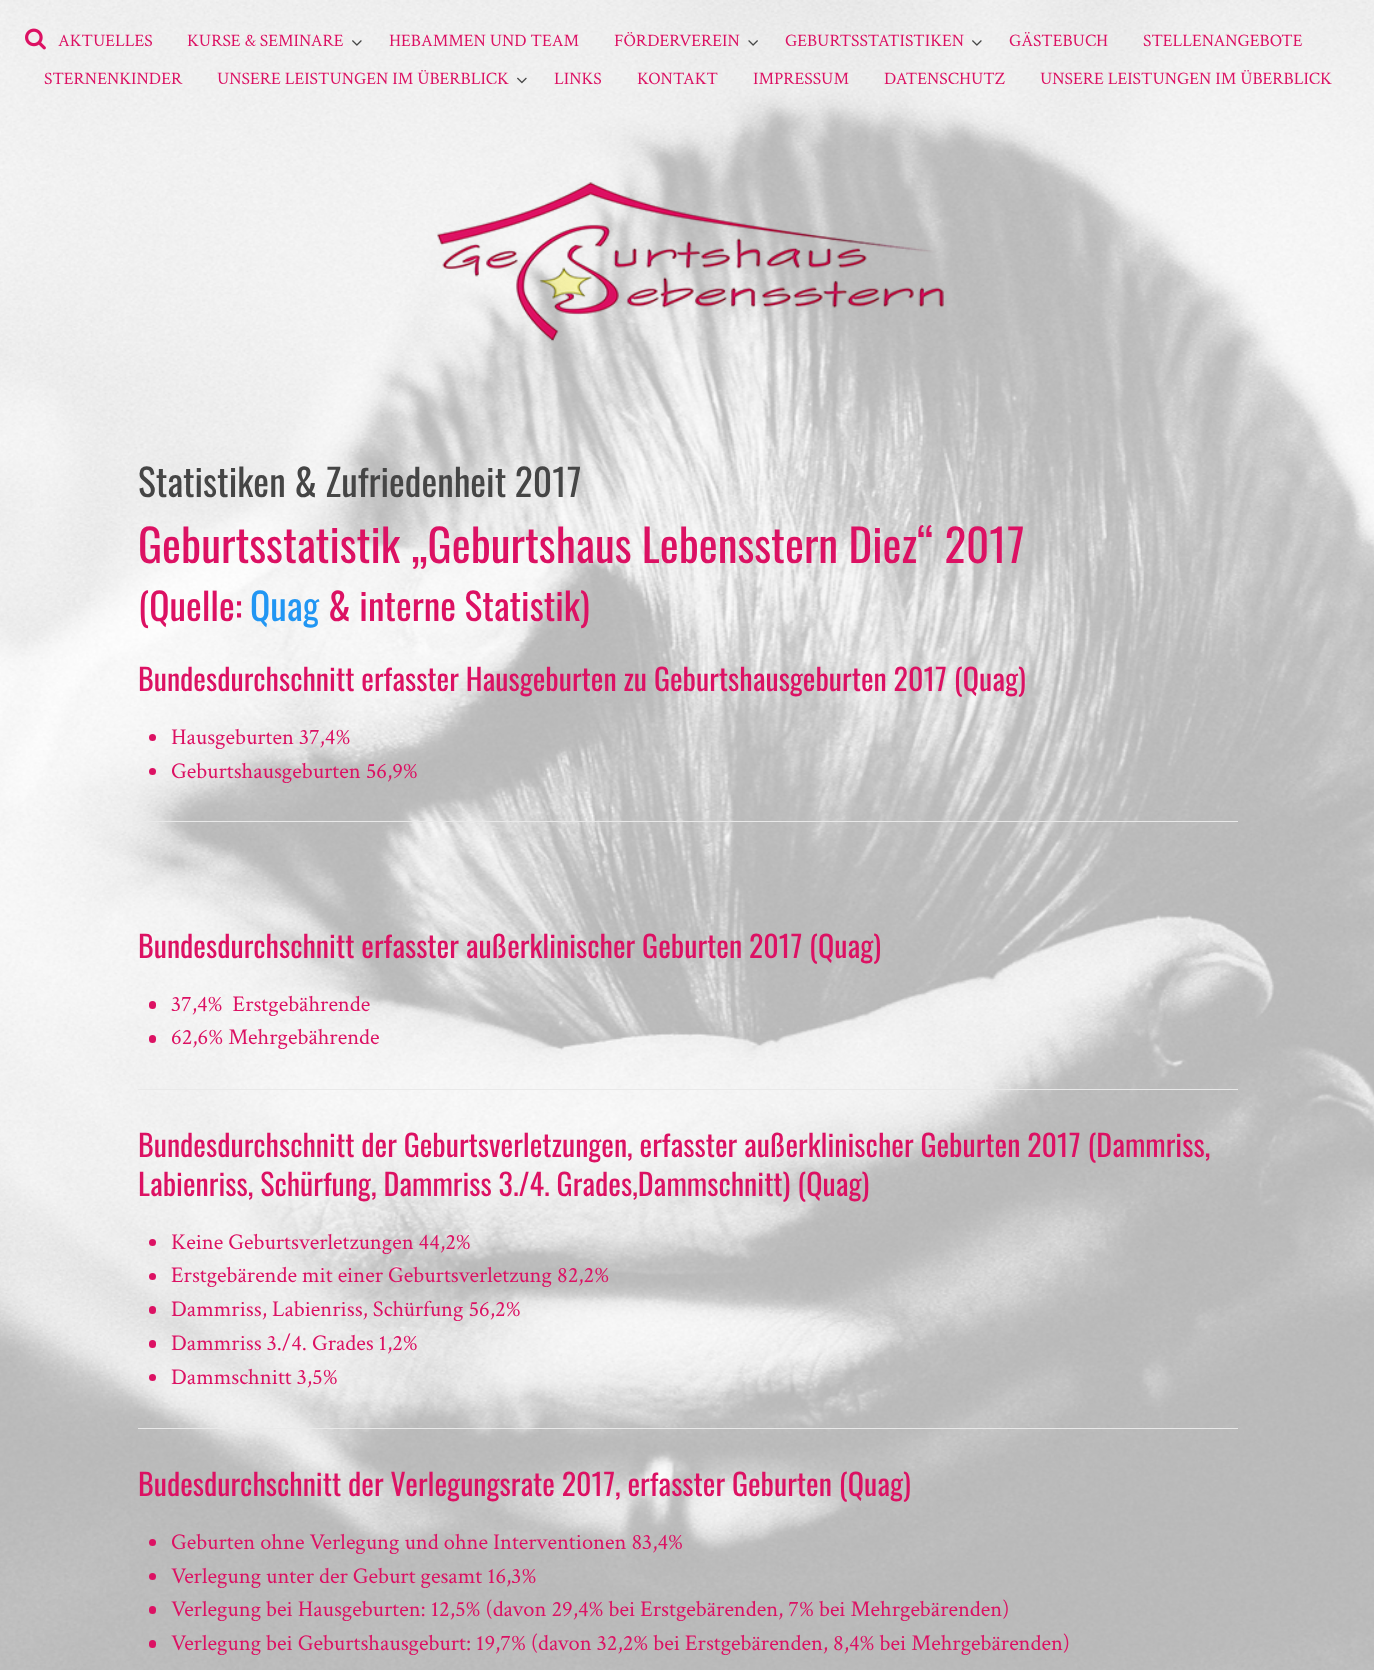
<!DOCTYPE html>
<meta charset="utf-8">
<style>body { margin: 0 } canvas { display: block }</style>
<canvas id="canvas" width="1374" height="1670"></canvas>
<img id="img1" src="images/1.png" hidden>
<img id="img2" src="images/2.png" hidden>
<img id="img3" src="images/3.png" hidden>
<img id="img4" src="images/4.png" hidden>
<img id="img5" src="images/5.png" hidden>
<img id="img6" src="images/6.png" hidden>
<img id="img7" src="images/7.png" hidden>
<script>
window.onload = function () {
    const canvas = document.getElementById('canvas');
    const context = canvas.getContext('2d');
    context.miterLimit = 4;
    context.fontKerning = 'normal';

    context.fillStyle = 'rgb(255, 255, 255)';
    context.fillRect(0, 0, 1374, 1670);
    context.drawImage(document.getElementById('img1'), 0, 0, 1374, 1670);
    context.drawImage(document.getElementById('img2'), 25, 28, 21, 22);
    context.drawImage(document.getElementById('img3'), 352, 40, 10, 6);
    context.drawImage(document.getElementById('img4'), 748, 40, 10, 6);
    context.drawImage(document.getElementById('img5'), 972, 40, 10, 6);
    context.drawImage(document.getElementById('img6'), 517, 77, 10, 7);
    context.drawImage(document.getElementById('img7'), 437, 182, 507, 160);
    context.fillStyle = 'rgb(220, 17, 99)';
    context.beginPath();
    context.arc(152.5, 737.5, 3.5, 0, 2 * Math.PI);
    context.fill();
    context.beginPath();
    context.arc(152.5, 771.5, 3.5, 0, 2 * Math.PI);
    context.fill();
    context.fillStyle = 'rgb(233, 233, 233)';
    context.fillRect(138, 821, 1100, 1);
    context.fillStyle = 'rgb(220, 17, 99)';
    context.beginPath();
    context.roundRect(149, 1001, 7, 8, 3.5);
    context.fill();
    context.beginPath();
    context.roundRect(149, 1035, 7, 8, 3.5);
    context.fill();
    context.fillStyle = 'rgb(233, 233, 233)';
    context.fillRect(138, 1089, 1100, 1);
    context.fillStyle = 'rgb(220, 17, 99)';
    context.beginPath();
    context.arc(152.5, 1242.5, 3.5, 0, 2 * Math.PI);
    context.fill();
    context.beginPath();
    context.arc(152.5, 1276.5, 3.5, 0, 2 * Math.PI);
    context.fill();
    context.beginPath();
    context.roundRect(149, 1306, 7, 8, 3.5);
    context.fill();
    context.beginPath();
    context.roundRect(149, 1340, 7, 8, 3.5);
    context.fill();
    context.beginPath();
    context.arc(152.5, 1377.5, 3.5, 0, 2 * Math.PI);
    context.fill();
    context.fillStyle = 'rgb(233, 233, 233)';
    context.fillRect(138, 1428, 1100, 1);
    context.fillStyle = 'rgb(220, 17, 99)';
    context.beginPath();
    context.arc(152.5, 1542.5, 3.5, 0, 2 * Math.PI);
    context.fill();
    context.beginPath();
    context.arc(152.5, 1576.5, 3.5, 0, 2 * Math.PI);
    context.fill();
    context.beginPath();
    context.roundRect(149, 1606, 7, 8, 3.5);
    context.fill();
    context.beginPath();
    context.roundRect(149, 1640, 7, 8, 3.5);
    context.fill();
    context.font = '17.5px Crimson Text';
    context.fillText('AKTUELLES', 58, 46);
    context.fillText('KURSE & SEMINARE', 187, 46);
    context.fillText('HEBAMMEN UND TEAM', 389, 46);
    context.fillText('FÖRDERVEREIN', 614, 46);
    context.fillText('GEBURTSSTATISTIKEN', 785, 46);
    context.fillText('GÄSTEBUCH', 1009, 46);
    context.fillText('STELLENANGEBOTE', 1143, 46);
    context.fillText('STERNENKINDER', 44, 84);
    context.fillText('UNSERE LEISTUNGEN IM ÜBERBLICK', 217, 84);
    context.fillText('LINKS', 554, 84);
    context.fillText('KONTAKT', 637, 84);
    context.fillText('IMPRESSUM', 753, 84);
    context.fillText('DATENSCHUTZ', 884, 84);
    context.fillText('UNSERE LEISTUNGEN IM ÜBERBLICK', 1040, 84);
    context.font = '37.5px Oswald';
    context.fillStyle = 'rgb(69, 69, 69)';
    context.fillText('Statistiken & Zufriedenheit 2017', 138, 497);
    context.font = '45px Oswald';
    context.fillStyle = 'rgb(220, 17, 99)';
    context.fillText('Geburtsstatistik „Geburtshaus Lebensstern Diez“ 2017', 138, 563);
    context.font = '37.5px Oswald';
    context.fillText('(Quelle:', 138, 621);
    context.fillStyle = 'rgb(33, 150, 243)';
    context.fillText('Quag', 250, 621);
    context.fillStyle = 'rgb(220, 17, 99)';
    context.fillText('& interne Statistik)', 328, 621);
    context.font = '30px Oswald';
    context.fillText('Bundesdurchschnitt erfasster Hausgeburten zu Geburtshausgeburten 2017 (Quag)', 138, 691);
    context.font = '22.5px Crimson Text';
    context.fillText('Hausgeburten 37,4%', 171, 744);
    context.fillText('Geburtshausgeburten 56,9%', 171, 778);
    context.font = '30px Oswald';
    context.fillText('Bundesdurchschnitt erfasster außerklinischer Geburten 2017 (Quag)', 138, 958);
    context.font = '22.5px Crimson Text';
    context.fillText('37,4%  Erstgebährende', 171, 1011);
    context.fillText('62,6% Mehrgebährende', 171, 1044);
    context.font = '30px Oswald';
    context.fillText('Bundesdurchschnitt der Geburtsverletzungen, erfasster außerklinischer Geburten 2017 (Dammriss,', 138, 1157);
    context.fillText('Labienriss, Schürfung, Dammriss 3./4. Grades,Dammschnitt) (Quag)', 138, 1196);
    context.font = '22.5px Crimson Text';
    context.fillText('Keine Geburtsverletzungen 44,2%', 171, 1249);
    context.fillText('Erstgebärende mit einer Geburtsverletzung 82,2%', 171, 1282);
    context.fillText('Dammriss, Labienriss, Schürfung 56,2%', 171, 1316);
    context.fillText('Dammriss 3./4. Grades 1,2%', 171, 1350);
    context.fillText('Dammschnitt 3,5%', 171, 1384);
    context.font = '30px Oswald';
    context.fillText('Budesdurchschnitt der Verlegungsrate 2017, erfasster Geburten (Quag)', 138, 1496);
    context.font = '22.5px Crimson Text';
    context.fillText('Geburten ohne Verlegung und ohne Interventionen 83,4%', 171, 1549);
    context.fillText('Verlegung unter der Geburt gesamt 16,3%', 171, 1583);
    context.fillText('Verlegung bei Hausgeburten: 12,5% (davon 29,4% bei Erstgebärenden, 7% bei Mehrgebärenden)', 171, 1616);
    context.fillText('Verlegung bei Geburtshausgeburt: 19,7% (davon 32,2% bei Erstgebärenden, 8,4% bei Mehrgebärenden)', 171, 1650);
};
</script>
